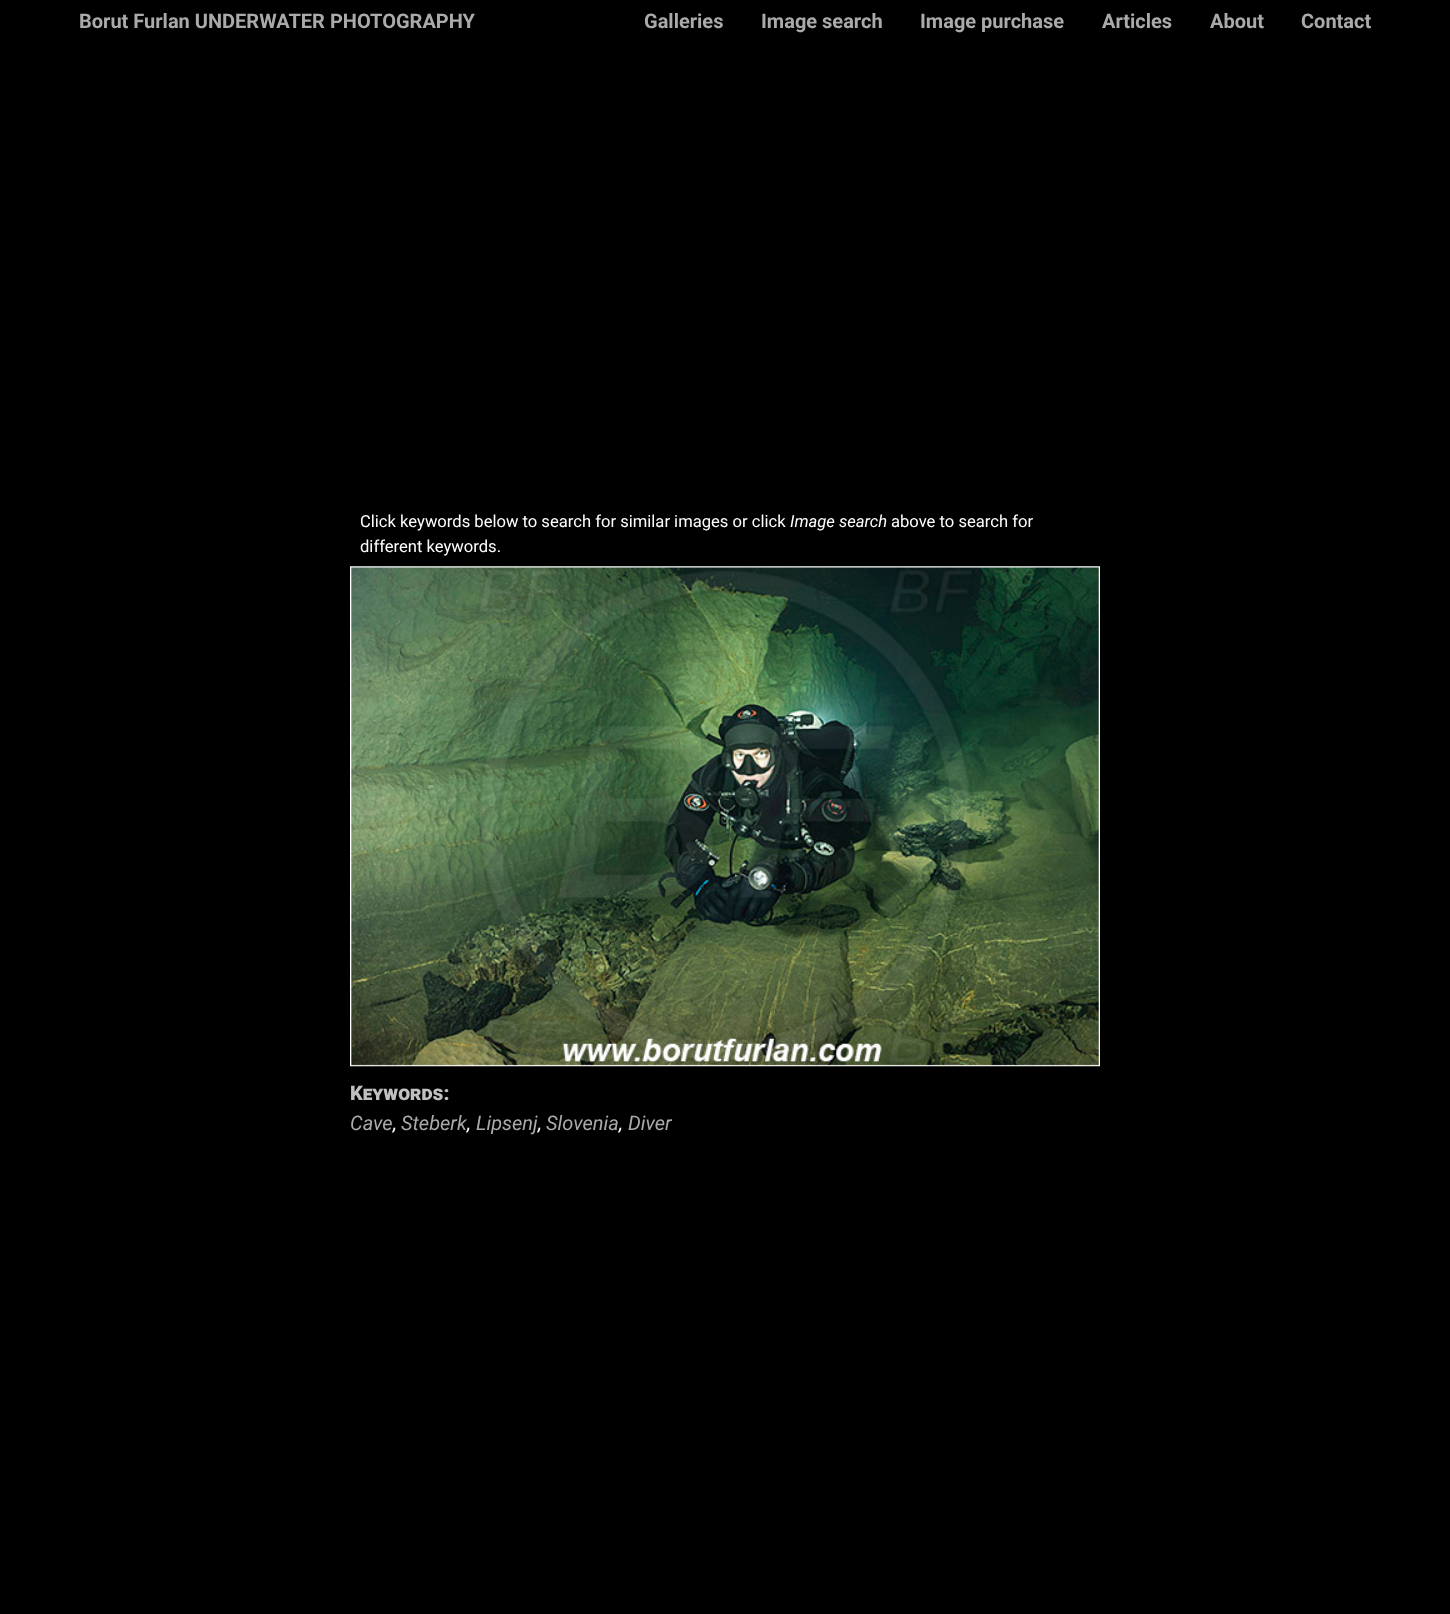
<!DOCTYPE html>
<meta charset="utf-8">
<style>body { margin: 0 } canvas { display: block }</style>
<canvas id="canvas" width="1450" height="1614"></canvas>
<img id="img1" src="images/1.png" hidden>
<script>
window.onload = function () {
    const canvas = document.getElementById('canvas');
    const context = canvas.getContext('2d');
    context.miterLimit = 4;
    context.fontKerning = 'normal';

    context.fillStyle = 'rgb(0, 0, 0)';
    context.fillRect(0, 0, 1450, 1614);
    context.drawImage(document.getElementById('img1'), 350, 566, 750, 501);
    context.font = 'bold 20px Roboto';
    context.fillStyle = 'rgb(170, 170, 170)';
    context.fillText('Borut Furlan UNDERWATER PHOTOGRAPHY', 79, 28);
    context.fillText('Galleries', 644, 28);
    context.fillText('Image search', 761, 28);
    context.fillText('Image purchase', 920, 28);
    context.fillText('Articles', 1102, 28);
    context.fillText('About', 1210, 28);
    context.fillText('Contact', 1301, 28);
    context.font = '16.6px Roboto';
    context.fillStyle = 'rgb(255, 255, 255)';
    context.fillText('Click keywords below to search for similar images or click', 360, 527);
    context.font = 'italic 16.6px Roboto';
    context.fillText('Image search', 790, 527);
    context.font = '16.6px Roboto';
    context.fillText('above to search for', 891, 527);
    context.fillText('different keywords.', 360, 552);
    context.font = '900 20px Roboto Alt';
    context.fillStyle = 'rgb(192, 192, 192)';
    context.fillText('Keywords:', 350, 1100);
    context.font = 'italic 20px Roboto';
    context.fillStyle = 'rgb(170, 170, 170)';
    context.fillText('Cave', 350, 1130);
    context.fillStyle = 'rgb(255, 255, 255)';
    context.fillText(',', 393, 1130);
    context.fillStyle = 'rgb(170, 170, 170)';
    context.fillText('Steberk', 401, 1130);
    context.fillText('Lipsenj', 476, 1130);
    context.fillText('Slovenia', 546, 1130);
    context.fillText('Diver', 628, 1130);
    context.fillStyle = 'rgb(255, 255, 255)';
    context.fillText(',', 467, 1130);
    context.fillText(',', 538, 1130);
    context.fillText(',', 619, 1130);
};
</script>
